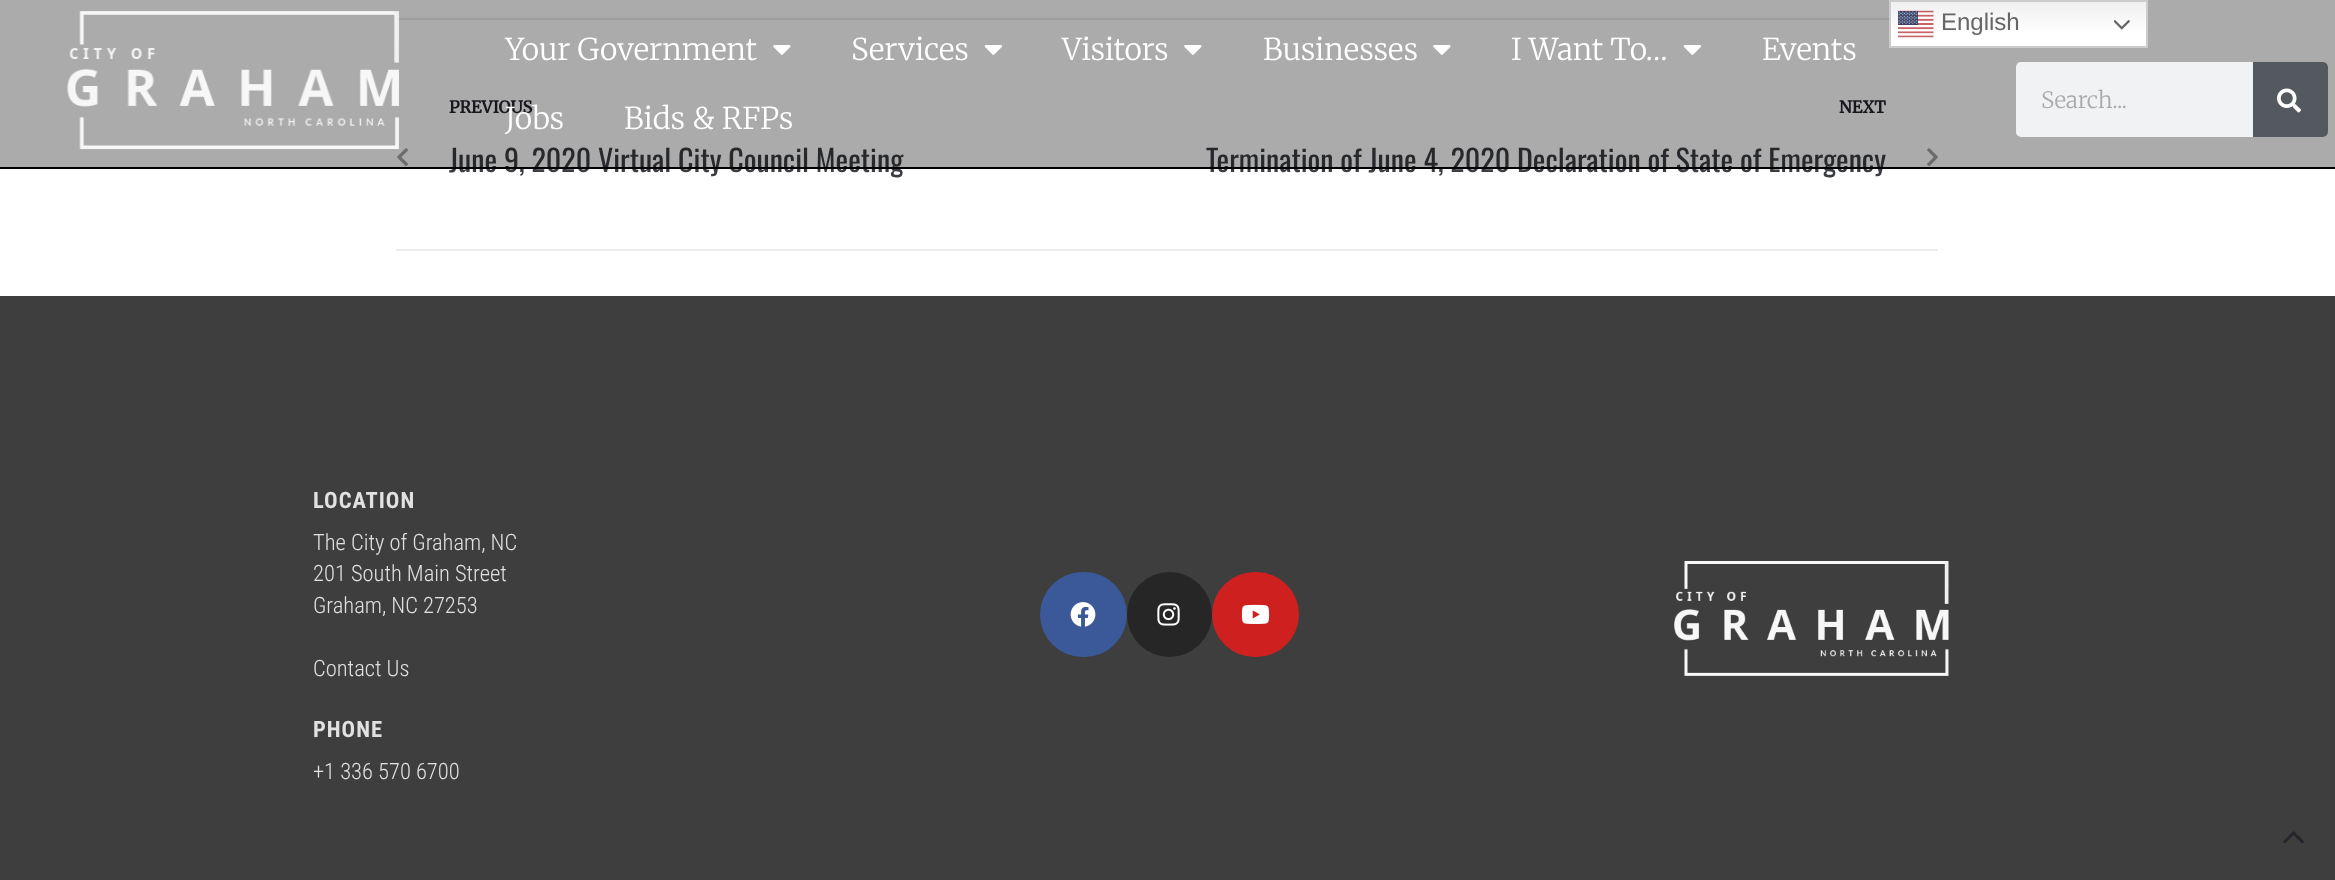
<!DOCTYPE html>
<meta charset="utf-8">
<style>body { margin: 0 } canvas { display: block }</style>
<canvas id="canvas" width="2335" height="880"></canvas>
<img id="img1" src="images/7.png" hidden>
<img id="img2" src="images/8.png" hidden>
<img id="img3" src="images/9.png" hidden>
<img id="img4" src="images/10.png" hidden>
<img id="img5" src="images/11.png" hidden>
<img id="img6" src="images/12.png" hidden>
<img id="img7" src="images/13.png" hidden>
<img id="img8" src="images/2.png" hidden>
<img id="img9" src="images/1.png" hidden>
<img id="img10" src="images/5.png" hidden>
<img id="img11" src="images/4.png" hidden>
<img id="img12" src="images/6.png" hidden>
<img id="img13" src="images/3.png" hidden>
<script>
window.onload = function () {
    const canvas = document.getElementById('canvas');
    const context = canvas.getContext('2d');
    context.miterLimit = 4;
    context.fontKerning = 'normal';
    let gradient;

    context.fillStyle = 'rgb(255, 255, 255)';
    context.fillRect(0, 0, 2335, 880);
    context.fillStyle = 'rgb(235, 236, 237)';
    context.fillRect(396, 18, 1493, 2);
    context.fillRect(396, 249, 1542, 2);
    context.drawImage(document.getElementById('img1'), 397, 148, 11, 18);
    context.drawImage(document.getElementById('img2'), 1927, 148, 11, 18);
    context.fillStyle = 'rgb(62, 62, 62)';
    context.fillRect(0, 296, 2335, 584);
    context.fillStyle = 'rgb(59, 89, 152)';
    context.beginPath();
    context.roundRect(1040, 572, 87, 85, 42.5);
    context.fill();
    context.drawImage(document.getElementById('img3'), 1070, 602, 26, 25);
    context.fillStyle = 'rgb(38, 38, 38)';
    context.beginPath();
    context.arc(1169.5, 614.5, 42.5, 0, 2 * Math.PI);
    context.fill();
    context.drawImage(document.getElementById('img4'), 1157, 603, 23, 23);
    context.fillStyle = 'rgb(205, 32, 31)';
    context.beginPath();
    context.roundRect(1212, 572, 87, 85, 42.5);
    context.fill();
    context.drawImage(document.getElementById('img5'), 1241, 604, 29, 20);
    context.drawImage(document.getElementById('img6'), 1674, 561, 275, 115);
    context.drawImage(document.getElementById('img7'), 2283, 831, 21, 13);
    context.font = 'bold 16.5px Merriweather';
    context.fillStyle = 'rgb(37, 35, 45)';
    context.fillText('PREVIOUS', 449, 113);
    context.font = '30px Oswald';
    context.fillStyle = 'rgb(59, 61, 66)';
    context.fillText('June 9, 2020 Virtual City Council Meeting', 449, 172);
    context.font = 'bold 16.5px Merriweather';
    context.fillStyle = 'rgb(37, 35, 45)';
    context.fillText('NEXT', 1839, 113);
    context.font = '30px Oswald';
    context.fillStyle = 'rgb(59, 61, 66)';
    context.fillText('Termination of June 4, 2020 Declaration of State of Emergency', 1206, 172);
    context.fillStyle = 'rgba(0, 0, 0, 0.33)';
    context.fillRect(0, 0, 2335, 167);
    gradient = context.createLinearGradient(2018, 0, 2018, 48);
    gradient.addColorStop(0, 'rgb(239, 239, 239)');
    gradient.addColorStop(0.7, 'rgb(255, 255, 255)');
    context.fillStyle = gradient;
    context.fillRect(1891, 2, 255, 44);
    context.strokeStyle = 'rgb(204, 204, 204)';
    context.lineWidth = 2;
    context.strokeRect(1890, 1, 257, 46);
    context.drawImage(document.getElementById('img8'), 2114, 20, 16, 10);
    context.drawImage(document.getElementById('img9'), 1898, 10, 36, 28);
    context.font = '24px Liberation Sans';
    context.fillStyle = 'rgb(102, 102, 102)';
    context.fillText('English', 1941, 30);
    context.font = '300 30px Merriweather';
    context.fillStyle = 'rgb(255, 255, 255)';
    context.fillText('Bids & RFPs', 624, 129);
    context.fillText('Jobs', 505, 129);
    context.fillText('Events', 1762, 60);
    context.drawImage(document.getElementById('img10'), 1683, 45, 18, 10);
    context.fillText('I Want To…', 1511, 60);
    context.drawImage(document.getElementById('img11'), 1433, 45, 18, 10);
    context.fillText('Businesses', 1263, 60);
    context.drawImage(document.getElementById('img11'), 1184, 45, 18, 10);
    context.fillText('Visitors', 1062, 60);
    context.drawImage(document.getElementById('img10'), 984, 45, 18, 10);
    context.fillText('Services', 851, 60);
    context.drawImage(document.getElementById('img11'), 773, 45, 18, 10);
    context.fillText('Your Government', 505, 60);
    context.fillStyle = 'rgb(241, 242, 243)';
    context.beginPath();
    context.roundRect(2016, 62, 312, 75, 5);
    context.fill();
    context.fillStyle = 'rgb(84, 89, 95)';
    context.beginPath();
    context.roundRect(2253, 62, 75, 75, [0, 5, 5, 0]);
    context.fill();
    context.drawImage(document.getElementById('img12'), 2277, 88, 24, 25);
    context.font = '300 22.5px Merriweather';
    context.fillStyle = 'rgb(170, 170, 170)';
    context.fillText('Search...', 2041, 108);
    context.drawImage(document.getElementById('img13'), 67, 11, 333, 139);
    context.fillStyle = 'rgb(0, 0, 0)';
    context.fillRect(0, 167, 2335, 2);
    context.letterSpacing = '1px';
    context.font = 'bold 22.5px Roboto Condensed';
    context.fillStyle = 'rgb(225, 225, 225)';
    context.fillText('LOCATION', 313, 508);
    context.letterSpacing = '0px';
    context.font = '300 22.5px Roboto Condensed';
    context.fillText('The City of Graham, NC', 313, 550);
    context.fillText('201 South Main Street', 313, 581);
    context.fillText('Graham, NC 27253', 313, 613);
    context.fillText('Contact Us', 313, 676);
    context.letterSpacing = '1px';
    context.font = 'bold 22.5px Roboto Condensed';
    context.fillText('PHONE', 313, 737);
    context.letterSpacing = '0px';
    context.font = '300 22.5px Roboto Condensed';
    context.fillText('+1 336 570 6700', 313, 779);
};
</script>
